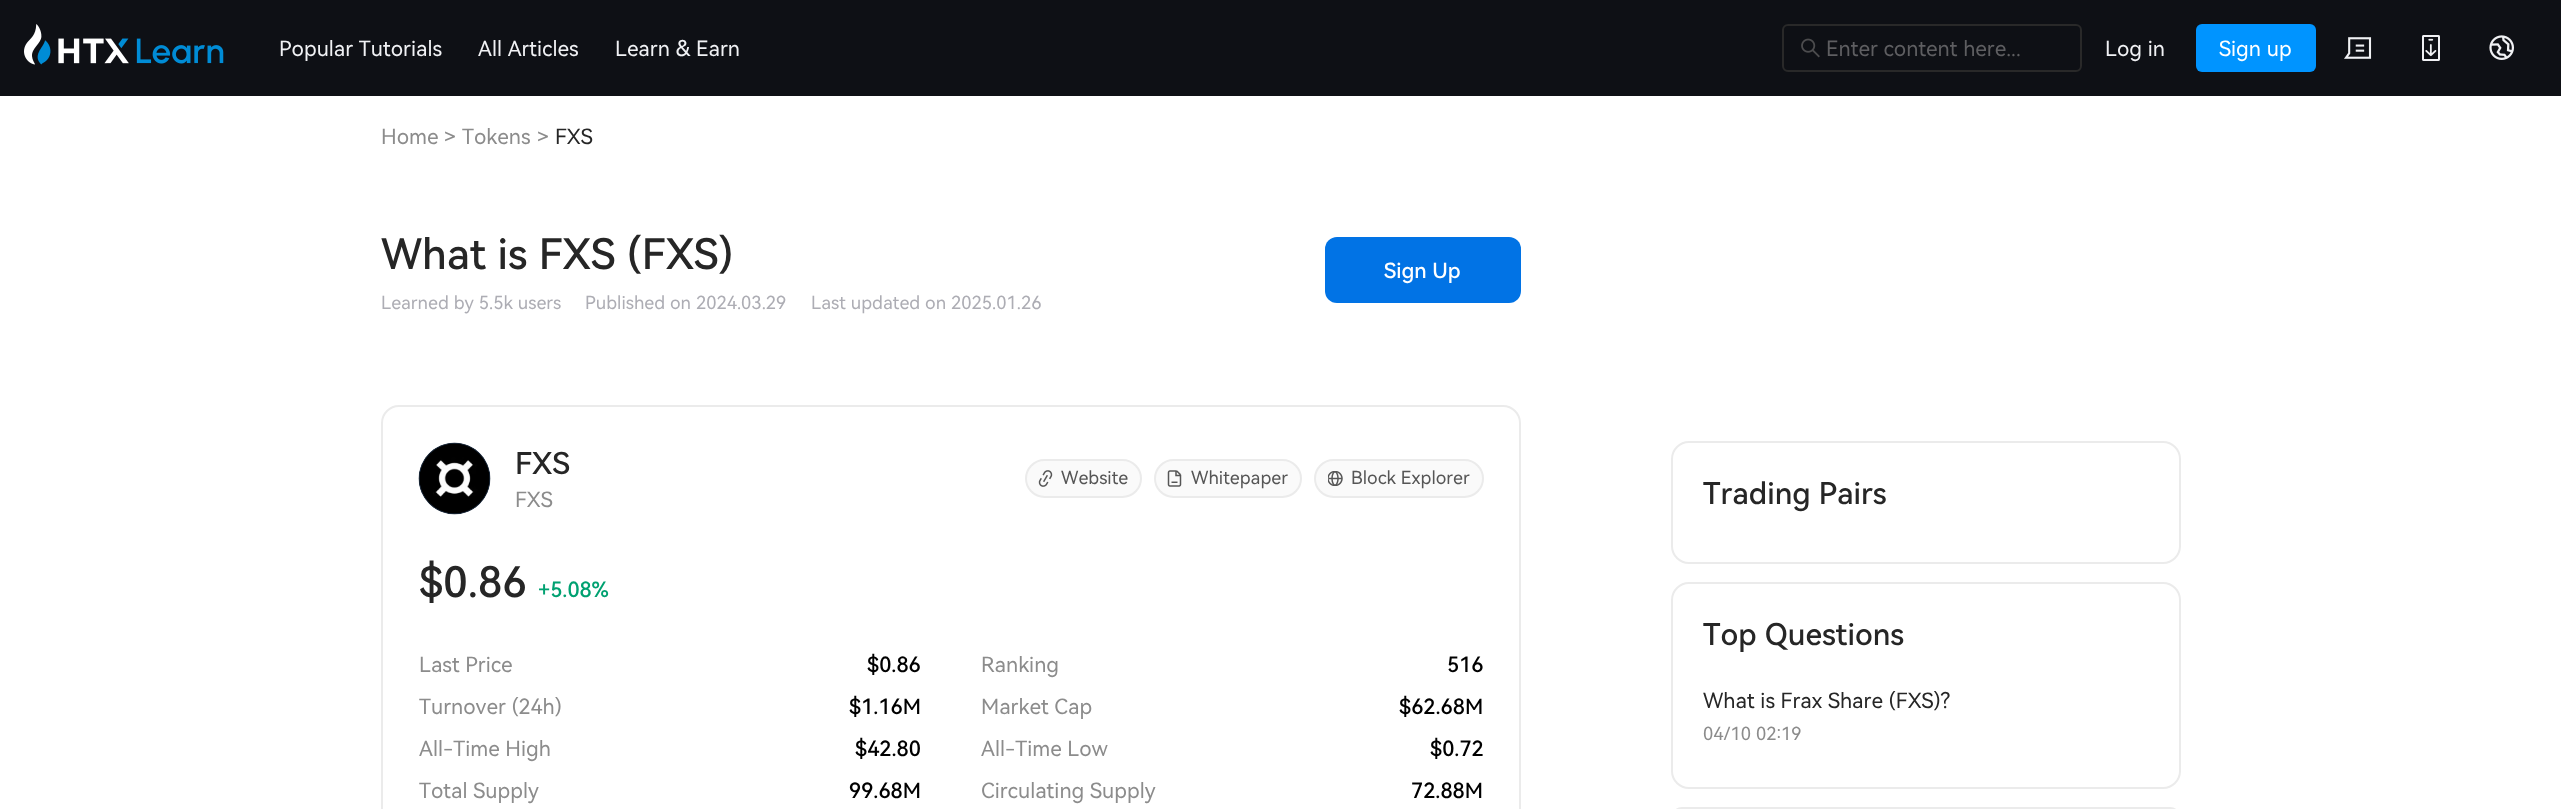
<!DOCTYPE html>
<meta charset="utf-8">
<style>body { margin: 0 } canvas { display: block }</style>
<canvas id="canvas" width="2561" height="809"></canvas>
<img id="img1" src="images/1.png" hidden>
<img id="img2" src="images/2.png" hidden>
<img id="img3" src="images/3.png" hidden>
<img id="img4" src="images/4.png" hidden>
<img id="img5" src="images/5.png" hidden>
<img id="img6" src="images/6.png" hidden>
<img id="img7" src="images/7.png" hidden>
<img id="img8" src="images/8.png" hidden>
<img id="img9" src="images/9.png" hidden>
<script>
window.onload = function () {
    const canvas = document.getElementById('canvas');
    const context = canvas.getContext('2d');
    context.miterLimit = 4;
    context.fontKerning = 'none';

    context.fillStyle = 'rgb(255, 255, 255)';
    context.fillRect(0, 0, 2561, 809);
    context.fillStyle = 'rgb(14, 16, 21)';
    context.fillRect(0, 0, 2561, 96);
    context.drawImage(document.getElementById('img1'), 24, 24, 200, 41);
    context.beginPath();
    context.roundRect(1783, 25, 298, 46, 5);
    context.strokeStyle = 'rgb(41, 41, 41)';
    context.lineWidth = 2;
    context.stroke();
    context.drawImage(document.getElementById('img2'), 1801, 38, 19, 20);
    context.fillStyle = 'rgb(0, 148, 255)';
    context.beginPath();
    context.roundRect(2196, 24, 120, 48, 6);
    context.fill();
    context.drawImage(document.getElementById('img3'), 2344, 37, 28, 22);
    context.drawImage(document.getElementById('img4'), 2422, 35, 18, 26);
    context.drawImage(document.getElementById('img5'), 2489, 35, 25, 25);
    context.fillStyle = 'rgb(1, 115, 229)';
    context.beginPath();
    context.roundRect(1325, 237, 196, 66, 12);
    context.fill();
    context.beginPath();
    context.roundRect(382, 406, 1138, 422, 17);
    context.strokeStyle = 'rgb(235, 235, 235)';
    context.stroke();
    context.drawImage(document.getElementById('img6'), 418, 442, 73, 73);
    context.fillStyle = 'rgb(250, 250, 250)';
    context.beginPath();
    context.roundRect(1026, 460, 115, 37, 18.5);
    context.fill();
    context.stroke();
    context.drawImage(document.getElementById('img7'), 1038, 470, 15, 17);
    context.beginPath();
    context.roundRect(1155, 460, 146, 37, 18.5);
    context.fill();
    context.stroke();
    context.drawImage(document.getElementById('img8'), 1167, 470, 15, 17);
    context.beginPath();
    context.roundRect(1315, 460, 168, 37, 18.5);
    context.fill();
    context.stroke();
    context.drawImage(document.getElementById('img9'), 1328, 471, 15, 15);
    context.beginPath();
    context.roundRect(1672, 442, 508, 121, 17);
    context.stroke();
    context.beginPath();
    context.roundRect(1672, 583, 508, 205, 17);
    context.stroke();
    context.beginPath();
    context.roundRect(1672, 808, 508, 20, 17);
    context.stroke();
    context.font = '21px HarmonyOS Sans';
    context.fillStyle = 'rgb(240, 241, 244)';
    context.fillText('Popular Tutorials', 279, 56);
    context.fillText('All Articles', 478, 56);
    context.fillText('Learn & Earn', 615, 56);
    context.fillStyle = 'rgb(94, 94, 97)';
    context.fillText('Enter content here...', 1826, 56);
    context.fillStyle = 'rgb(240, 241, 244)';
    context.fillText('Log in', 2105, 56);
    context.fillStyle = 'rgb(255, 255, 255)';
    context.fillText('Sign up', 2219, 56);
    context.fillStyle = 'rgb(140, 140, 140)';
    context.fillText('Home', 381, 144);
    context.fillText('>', 444, 144);
    context.fillText('Tokens', 462, 144);
    context.fillText('>', 537, 144);
    context.fillStyle = 'rgb(38, 38, 38)';
    context.fillText('FXS', 555, 144);
    context.font = '500 42px HarmonyOS Sans';
    context.fillText('What is FXS (FXS)', 381, 269);
    context.font = '18px HarmonyOS Sans';
    context.fillStyle = 'rgb(173, 173, 180)';
    context.fillText('Learned by 5.5k users', 381, 309);
    context.fillText('Published on 2024.03.29', 585, 309);
    context.fillText('Last updated on 2025.01.26', 811, 309);
    context.font = '500 21px HarmonyOS Sans';
    context.fillStyle = 'rgb(255, 255, 255)';
    context.fillText('Sign Up', 1384, 278);
    context.font = '500 30px HarmonyOS Sans';
    context.fillStyle = 'rgb(38, 38, 38)';
    context.fillText('FXS', 515, 474);
    context.font = '21px HarmonyOS Sans';
    context.fillStyle = 'rgb(140, 140, 140)';
    context.fillText('FXS', 515, 507);
    context.font = '18px HarmonyOS Sans';
    context.fillStyle = 'rgb(86, 86, 86)';
    context.fillText('Website', 1061, 484);
    context.fillText('Whitepaper', 1191, 484);
    context.fillText('Block Explorer', 1351, 484);
    context.font = '500 42px HarmonyOS Sans';
    context.fillStyle = 'rgb(38, 38, 38)';
    context.fillText('$0.86', 419, 597);
    context.font = '500 21px HarmonyOS Sans';
    context.fillStyle = 'rgb(0, 161, 113)';
    context.fillText('+5.08%', 538, 597);
    context.font = '21px HarmonyOS Sans';
    context.fillStyle = 'rgb(140, 140, 140)';
    context.fillText('Last Price', 419, 672);
    context.font = '500 21px HarmonyOS Sans';
    context.fillStyle = 'rgb(0, 0, 0)';
    context.fillText('$0.86', 867, 672);
    context.font = '21px HarmonyOS Sans';
    context.fillStyle = 'rgb(140, 140, 140)';
    context.fillText('Turnover (24h)', 419, 714);
    context.font = '500 21px HarmonyOS Sans';
    context.fillStyle = 'rgb(0, 0, 0)';
    context.fillText('$1.16M', 849, 714);
    context.font = '21px HarmonyOS Sans';
    context.fillStyle = 'rgb(140, 140, 140)';
    context.fillText('All-Time High', 419, 756);
    context.font = '500 21px HarmonyOS Sans';
    context.fillStyle = 'rgb(0, 0, 0)';
    context.fillText('$42.80', 855, 756);
    context.font = '21px HarmonyOS Sans';
    context.fillStyle = 'rgb(140, 140, 140)';
    context.fillText('Total Supply', 419, 798);
    context.font = '500 21px HarmonyOS Sans';
    context.fillStyle = 'rgb(0, 0, 0)';
    context.fillText('99.68M', 849, 798);
    context.font = '21px HarmonyOS Sans';
    context.fillStyle = 'rgb(140, 140, 140)';
    context.fillText('Ranking', 981, 672);
    context.font = '500 21px HarmonyOS Sans';
    context.fillStyle = 'rgb(0, 0, 0)';
    context.fillText('516', 1447, 672);
    context.font = '21px HarmonyOS Sans';
    context.fillStyle = 'rgb(140, 140, 140)';
    context.fillText('Market Cap', 981, 714);
    context.font = '500 21px HarmonyOS Sans';
    context.fillStyle = 'rgb(0, 0, 0)';
    context.fillText('$62.68M', 1399, 714);
    context.font = '21px HarmonyOS Sans';
    context.fillStyle = 'rgb(140, 140, 140)';
    context.fillText('All-Time Low', 981, 756);
    context.font = '500 21px HarmonyOS Sans';
    context.fillStyle = 'rgb(0, 0, 0)';
    context.fillText('$0.72', 1430, 756);
    context.font = '21px HarmonyOS Sans';
    context.fillStyle = 'rgb(140, 140, 140)';
    context.fillText('Circulating Supply', 981, 798);
    context.font = '500 21px HarmonyOS Sans';
    context.fillStyle = 'rgb(0, 0, 0)';
    context.fillText('72.88M', 1411, 798);
    context.font = '500 30px HarmonyOS Sans';
    context.fillStyle = 'rgb(38, 38, 38)';
    context.fillText('Trading Pairs', 1703, 504);
    context.fillText('Top Questions', 1703, 645);
    context.font = '21px HarmonyOS Sans';
    context.fillText('What is Frax Share (FXS)?', 1703, 708);
    context.font = '18px HarmonyOS Sans';
    context.fillStyle = 'rgb(140, 140, 140)';
    context.fillText('04/10 02:19', 1703, 740);
};
</script>
